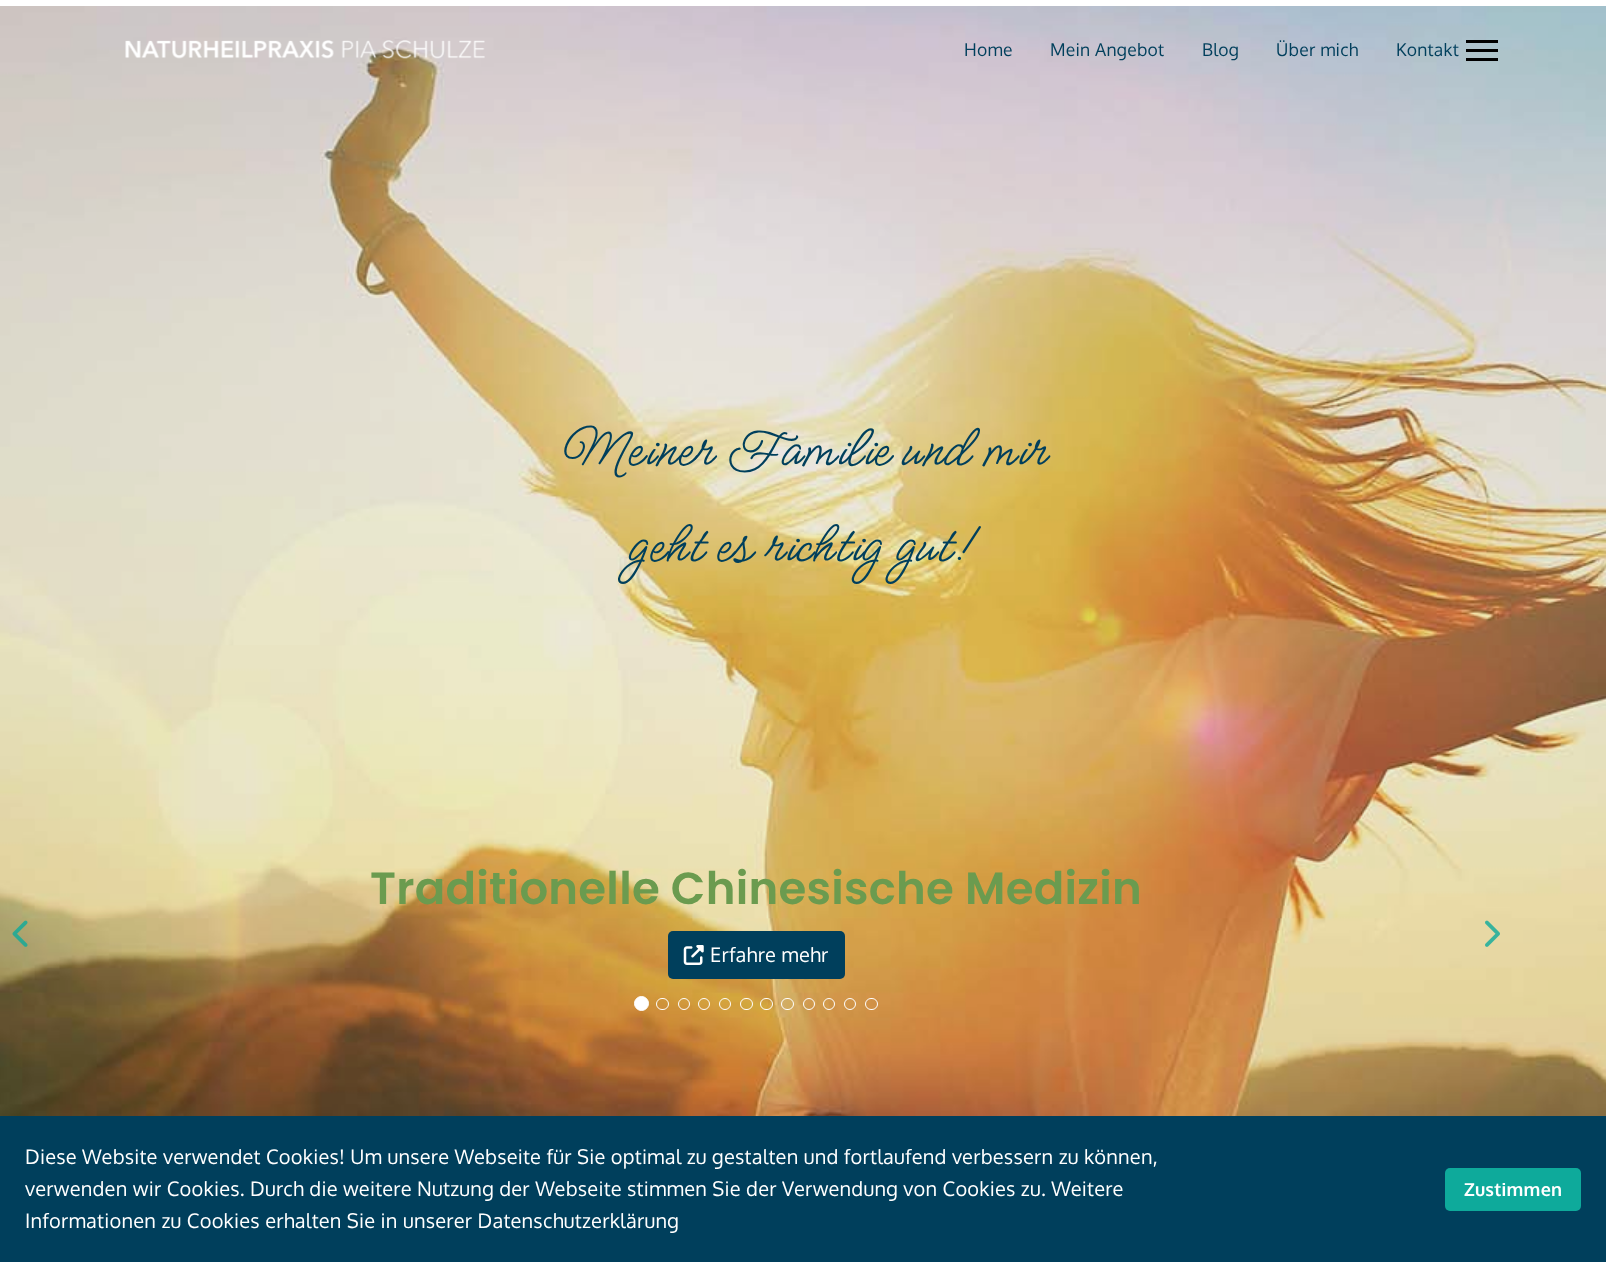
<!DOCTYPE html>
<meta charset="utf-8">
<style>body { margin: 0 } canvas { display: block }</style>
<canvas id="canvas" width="1606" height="1262"></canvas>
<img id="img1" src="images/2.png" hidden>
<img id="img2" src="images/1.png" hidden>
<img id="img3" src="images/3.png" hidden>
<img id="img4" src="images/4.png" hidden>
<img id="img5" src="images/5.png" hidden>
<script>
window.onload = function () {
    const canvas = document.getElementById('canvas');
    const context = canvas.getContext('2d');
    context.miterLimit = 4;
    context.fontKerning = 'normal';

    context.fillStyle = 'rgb(255, 255, 255)';
    context.fillRect(0, 0, 1606, 1262);
    context.drawImage(document.getElementById('img1'), 0, 6, 1606, 1110);
    context.drawImage(document.getElementById('img2'), 125, 40, 360, 19);
    context.fillStyle = 'rgb(0, 0, 0)';
    context.fillRect(1466, 40, 32, 3);
    context.fillRect(1466, 49, 32, 3);
    context.fillRect(1466, 58, 32, 3);
    context.drawImage(document.getElementById('img3'), 12, 920, 16, 27);
    context.fillStyle = 'rgb(0, 63, 92)';
    context.beginPath();
    context.roundRect(668, 931, 177, 48, 5);
    context.fill();
    context.drawImage(document.getElementById('img4'), 683, 945, 21, 20);
    context.drawImage(document.getElementById('img5'), 1485, 920, 15, 27);
    context.fillStyle = 'rgb(255, 255, 255)';
    context.beginPath();
    context.arc(641.5, 1003.5, 7, 0, 2 * Math.PI);
    context.fill();
    context.strokeStyle = 'rgb(255, 255, 255)';
    context.stroke();
    context.beginPath();
    context.roundRect(656.5, 998.5, 12, 11, 5.5);
    context.stroke();
    context.beginPath();
    context.arc(684, 1004, 5.5, 0, 2 * Math.PI);
    context.stroke();
    context.beginPath();
    context.arc(704, 1004, 5.5, 0, 2 * Math.PI);
    context.stroke();
    context.beginPath();
    context.arc(725, 1004, 5.5, 0, 2 * Math.PI);
    context.stroke();
    context.beginPath();
    context.roundRect(740.5, 998.5, 12, 11, 5.5);
    context.stroke();
    context.beginPath();
    context.roundRect(760.5, 998.5, 12, 11, 5.5);
    context.stroke();
    context.beginPath();
    context.roundRect(781.5, 998.5, 12, 11, 5.5);
    context.stroke();
    context.beginPath();
    context.arc(809, 1004, 5.5, 0, 2 * Math.PI);
    context.stroke();
    context.beginPath();
    context.arc(829, 1004, 5.5, 0, 2 * Math.PI);
    context.stroke();
    context.beginPath();
    context.arc(850, 1004, 5.5, 0, 2 * Math.PI);
    context.stroke();
    context.beginPath();
    context.roundRect(865.5, 998.5, 12, 11, 5.5);
    context.stroke();
    context.fillStyle = 'rgb(0, 63, 92)';
    context.fillRect(0, 1116, 1606, 146);
    context.fillStyle = 'rgb(14, 170, 155)';
    context.beginPath();
    context.roundRect(1445, 1168, 136, 43, 5);
    context.fill();
    context.letterSpacing = '0.25px';
    context.font = '17.5px Oxygen';
    context.fillStyle = 'rgb(0, 63, 92)';
    context.fillText('Home', 964, 56);
    context.fillText('Mein Angebot', 1050, 56);
    context.fillText('Blog', 1202, 56);
    context.fillText('Über mich', 1276, 56);
    context.fillText('Kontakt', 1396, 56);
    context.font = '60px Meow Script';
    context.fillText('Meiner Familie und mir', 561, 465);
    context.fillText('geht es richtig gut!', 626, 561);
    context.font = '600 45px Poppins';
    context.fillStyle = 'rgb(107, 155, 79)';
    context.fillText('Traditionelle Chinesische Medizin', 370, 904);
    context.font = '20px Oxygen';
    context.fillStyle = 'rgb(255, 255, 255)';
    context.fillText('Erfahre mehr', 710, 962);
    context.fillText('Diese Website verwendet Cookies! Um unsere Webseite für Sie optimal zu gestalten und fortlaufend verbessern zu können,', 25, 1164);
    context.fillText('verwenden wir Cookies. Durch die weitere Nutzung der Webseite stimmen Sie der Verwendung von Cookies zu. Weitere', 25, 1196);
    context.fillText('Informationen zu Cookies erhalten Sie in unserer Datenschutzerklärung', 25, 1228);
    context.font = 'bold 18px Oxygen';
    context.fillText('Zustimmen', 1464, 1196);
};
</script>
